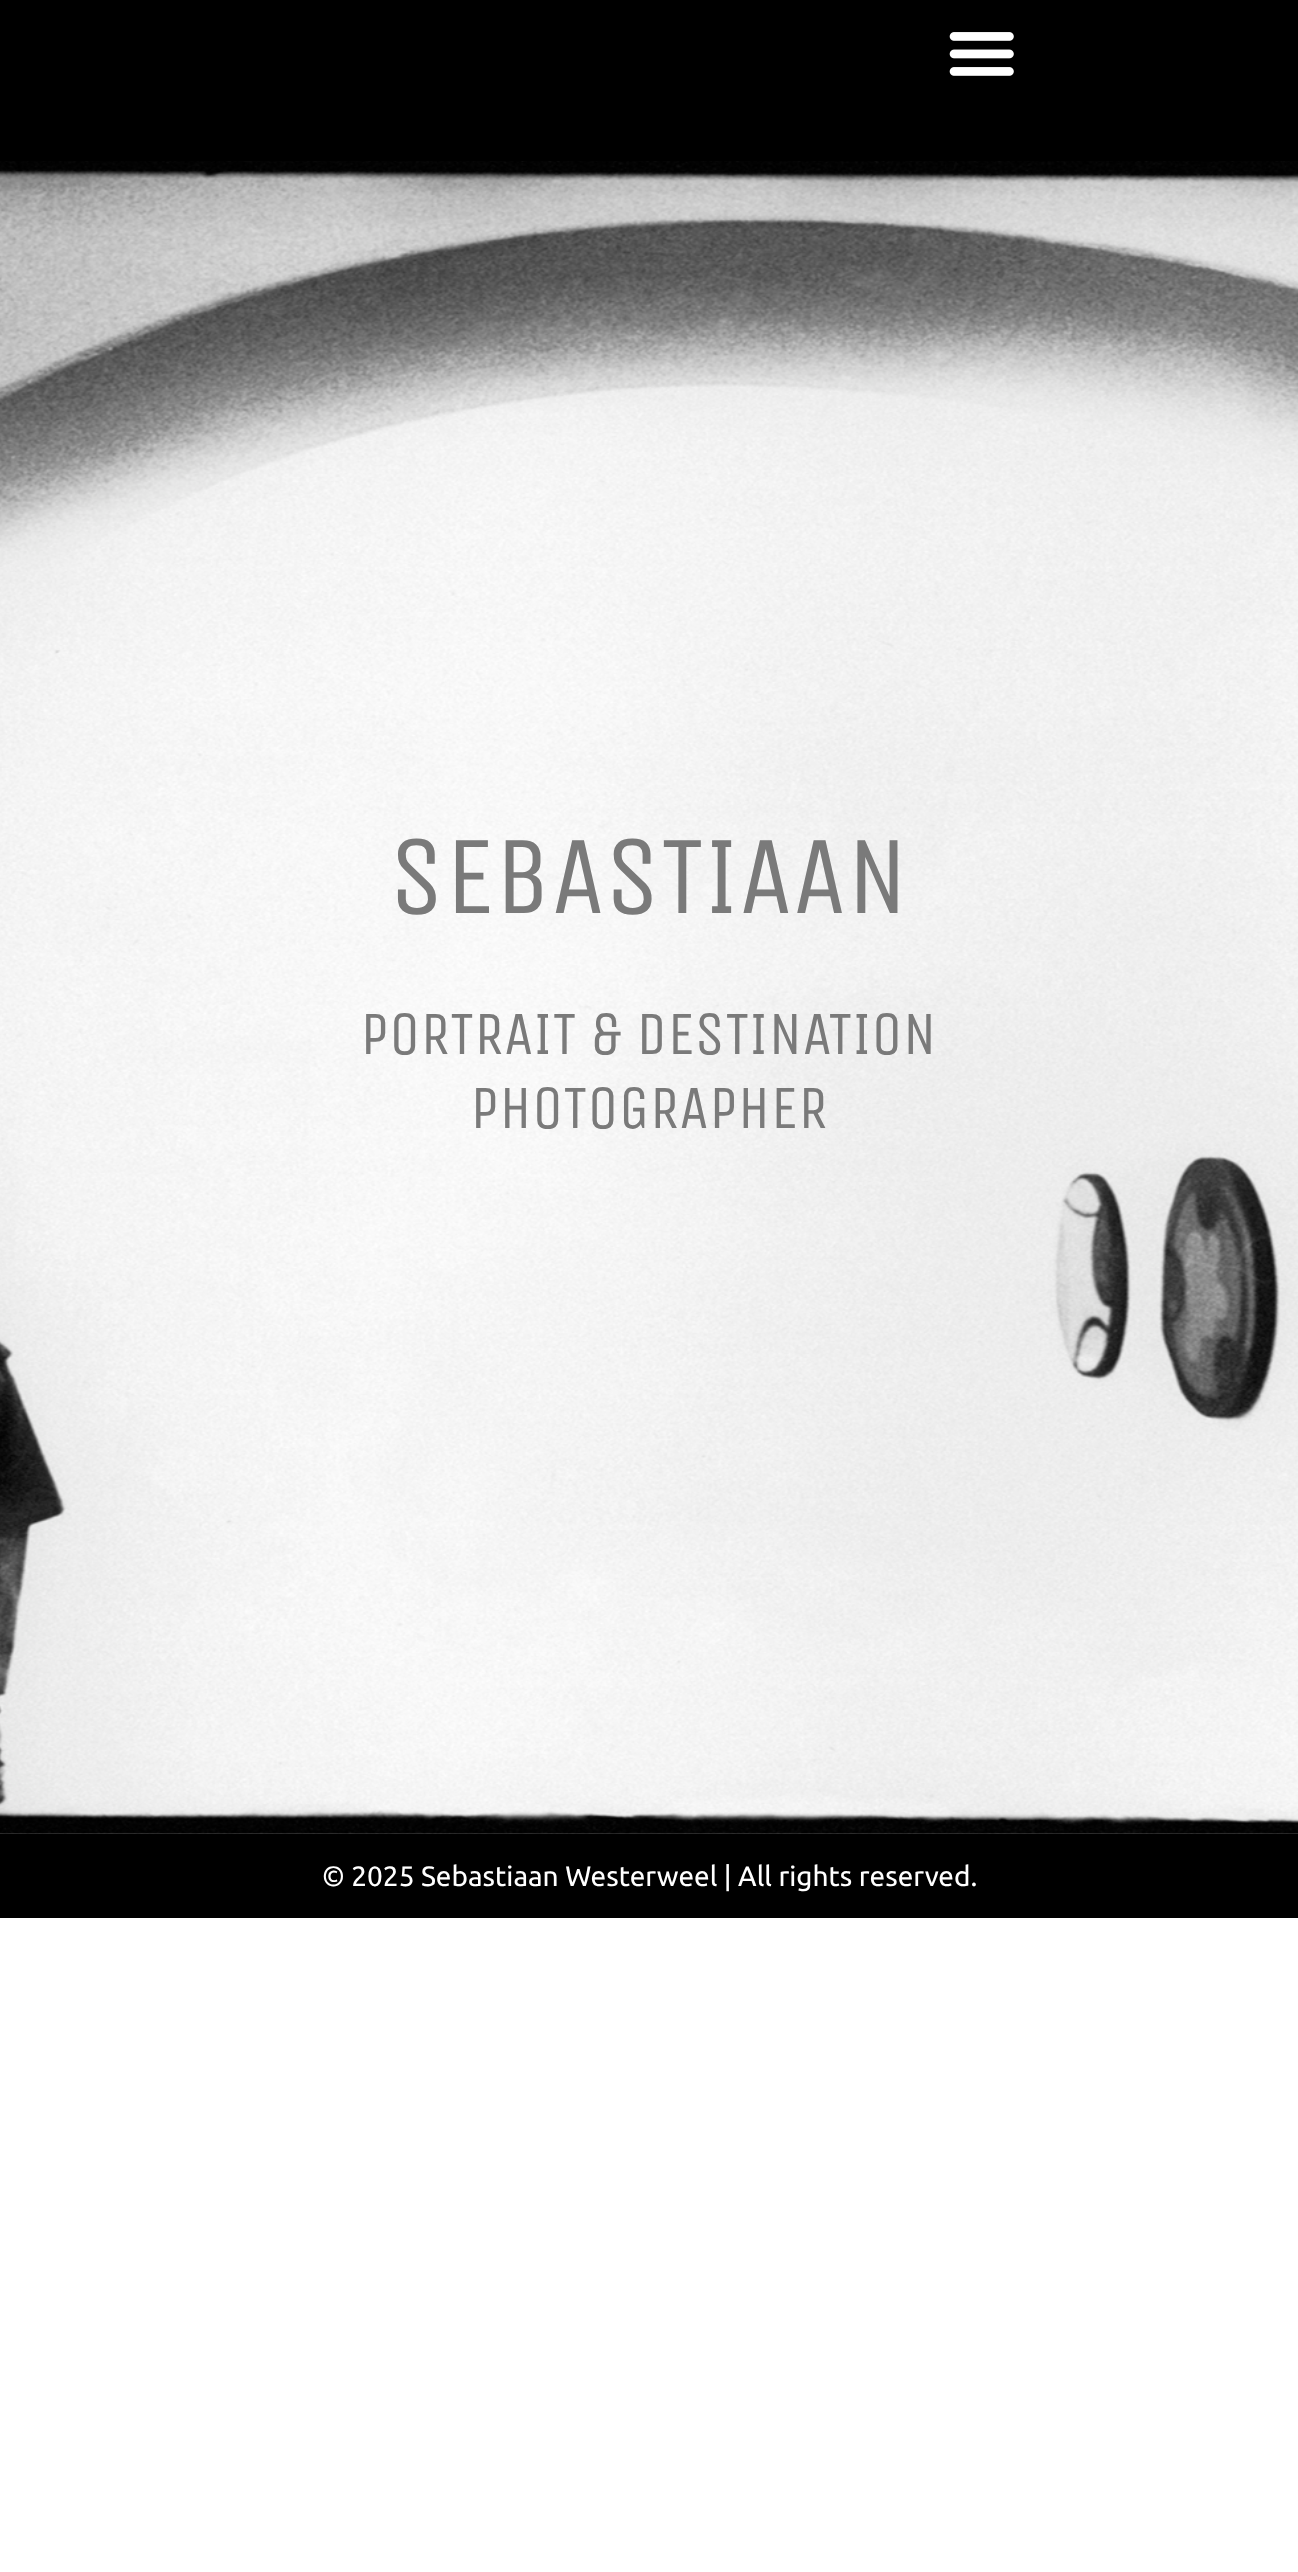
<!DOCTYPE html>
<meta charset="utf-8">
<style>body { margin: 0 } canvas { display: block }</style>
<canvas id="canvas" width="1298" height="2572"></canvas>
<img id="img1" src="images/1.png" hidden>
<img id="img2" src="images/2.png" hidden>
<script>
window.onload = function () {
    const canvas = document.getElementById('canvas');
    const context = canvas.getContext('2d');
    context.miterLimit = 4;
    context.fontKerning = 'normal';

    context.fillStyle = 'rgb(255, 255, 255)';
    context.fillRect(0, 0, 1298, 2572);
    context.fillStyle = 'rgb(0, 0, 0)';
    context.fillRect(0, 0, 1298, 161);
    context.drawImage(document.getElementById('img1'), 949, 32, 65, 44);
    context.drawImage(document.getElementById('img2'), 0, 161, 1298, 1673);
    context.fillRect(0, 1834, 1298, 84);
    context.font = '112px Unica One';
    context.fillStyle = 'rgb(122, 122, 122)';
    context.fillText('SEBASTIAAN', 389, 913);
    context.font = '61.5px Unica One';
    context.fillText('PORTRAIT & DESTINATION', 360, 1054);
    context.fillText('PHOTOGRAPHER', 470, 1128);
    context.font = '28px Ubuntu';
    context.fillStyle = 'rgb(255, 255, 255)';
    context.fillText('© 2025 Sebastiaan Westerweel | All rights reserved.', 322, 1886);
};
</script>
